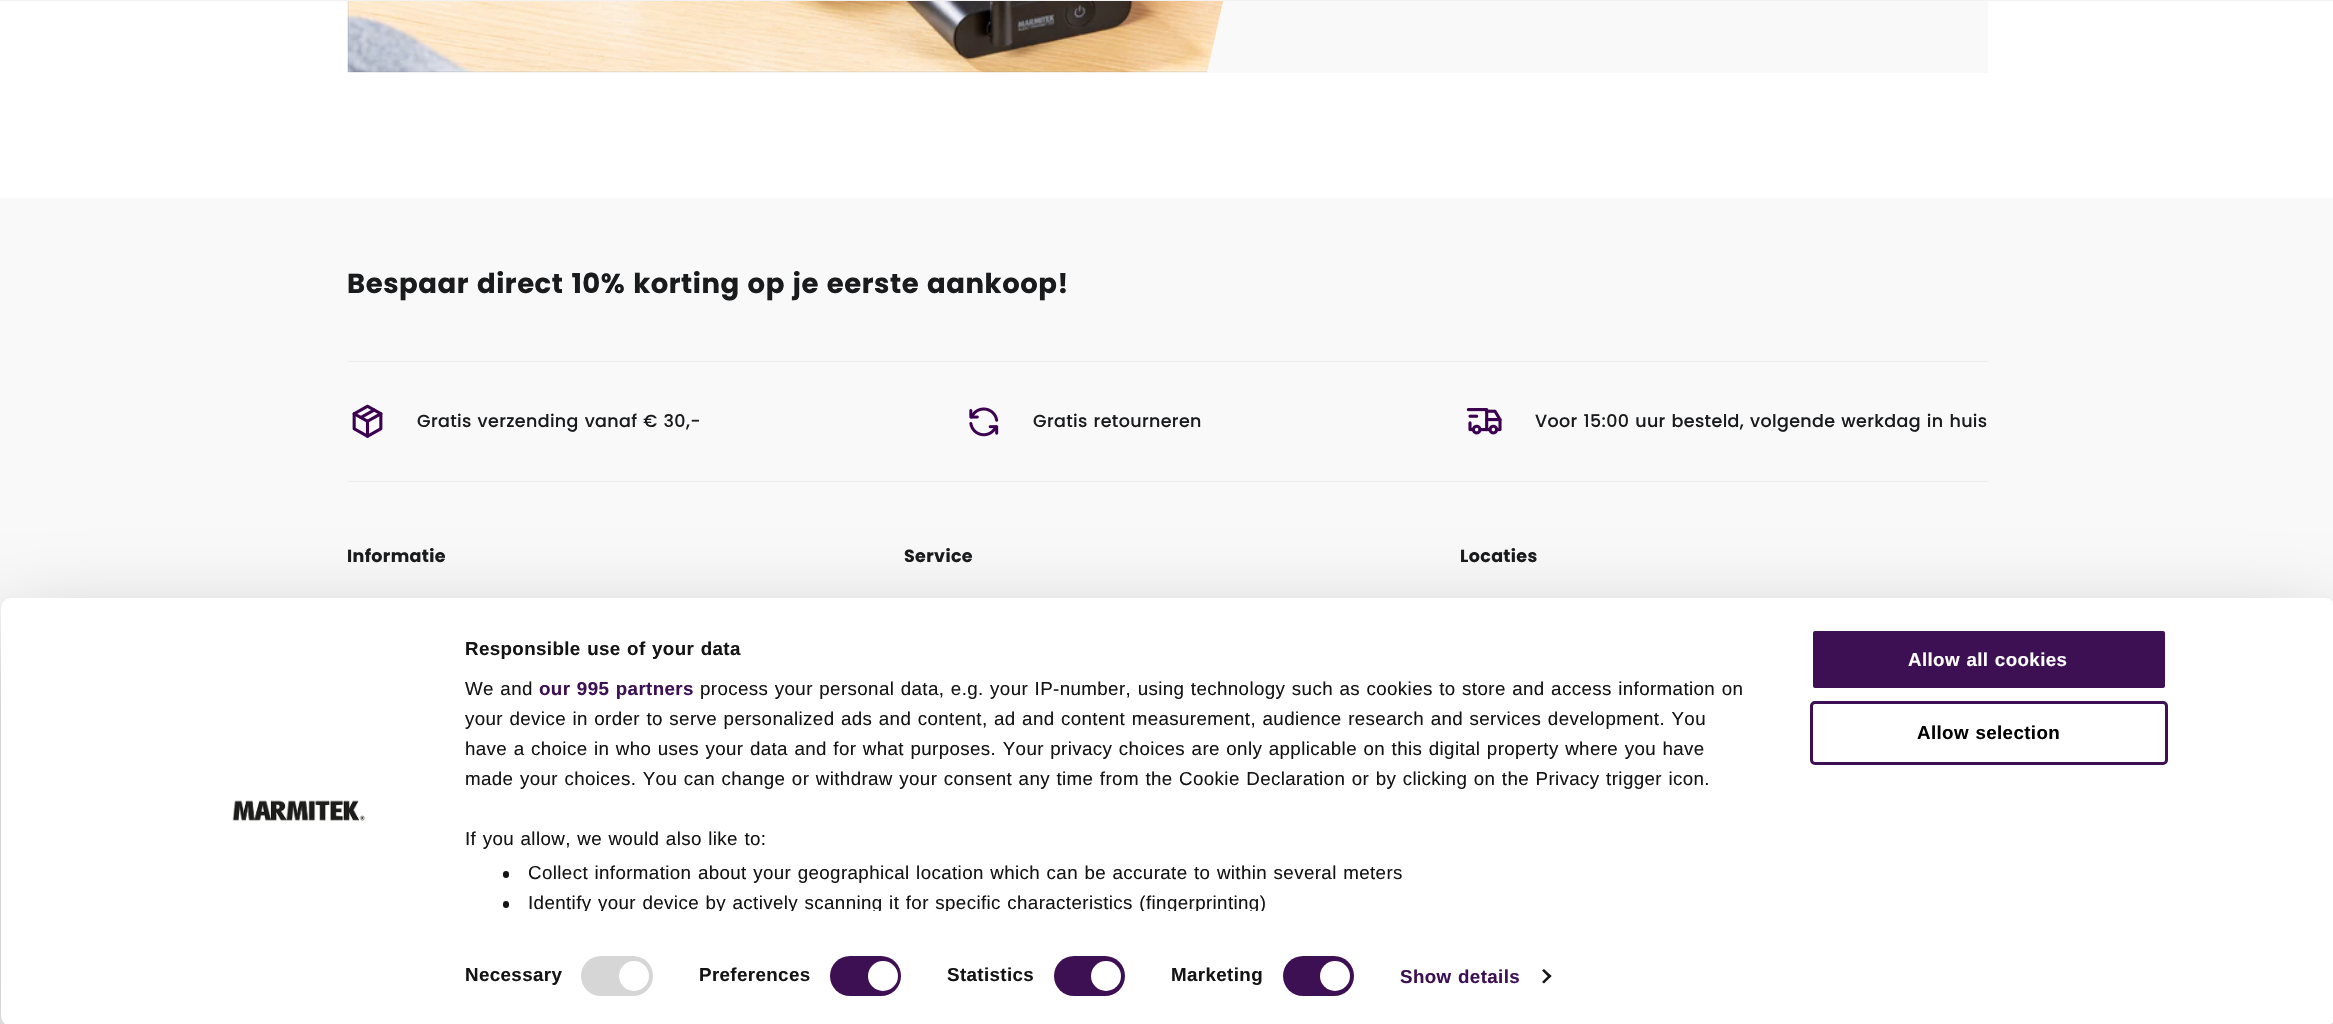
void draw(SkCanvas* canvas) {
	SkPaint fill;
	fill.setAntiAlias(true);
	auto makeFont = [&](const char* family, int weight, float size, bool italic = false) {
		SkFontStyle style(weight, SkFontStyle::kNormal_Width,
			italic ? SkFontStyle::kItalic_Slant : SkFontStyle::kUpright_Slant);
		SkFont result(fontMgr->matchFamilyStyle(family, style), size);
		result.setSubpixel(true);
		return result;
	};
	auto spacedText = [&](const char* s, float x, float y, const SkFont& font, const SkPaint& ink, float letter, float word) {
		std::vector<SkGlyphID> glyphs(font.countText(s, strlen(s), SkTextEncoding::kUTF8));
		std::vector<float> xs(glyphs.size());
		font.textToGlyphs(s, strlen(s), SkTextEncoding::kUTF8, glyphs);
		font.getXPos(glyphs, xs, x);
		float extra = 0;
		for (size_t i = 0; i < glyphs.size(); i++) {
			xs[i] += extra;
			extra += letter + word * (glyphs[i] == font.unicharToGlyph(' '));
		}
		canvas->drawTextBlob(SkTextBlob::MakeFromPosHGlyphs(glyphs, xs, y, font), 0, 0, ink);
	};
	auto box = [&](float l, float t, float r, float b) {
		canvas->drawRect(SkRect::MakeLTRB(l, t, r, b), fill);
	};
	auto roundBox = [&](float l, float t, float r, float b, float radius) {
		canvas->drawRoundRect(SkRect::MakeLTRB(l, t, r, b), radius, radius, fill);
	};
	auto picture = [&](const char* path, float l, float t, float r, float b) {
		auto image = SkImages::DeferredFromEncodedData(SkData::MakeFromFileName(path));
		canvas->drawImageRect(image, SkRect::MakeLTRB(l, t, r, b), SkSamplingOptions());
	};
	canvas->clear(0xFFFFFFFF);
	fill.setColor(0xFFF2F2F2);
	box(0, 0, 2333, 1);
	fill.setColor(0xFFF9F9F9);
	box(348, 1, 1988, 73);
	picture("image0.png", 347, 1, 1224, 73);
	box(0, 198, 2333, 1024);
	fill.setColor(0xFFEDEDED);
	box(348, 361, 1988, 362);
	picture("image1.png", 352, 404, 383, 438);
	picture("image2.png", 969, 407, 999, 437);
	picture("image3.png", 1466, 408, 1502, 435);
	box(348, 481, 1988, 482);
	fill.setColor(0x4D000000);
	fill.setMaskFilter(SkMaskFilter::MakeBlur(kNormal_SkBlurStyle, 44));
	canvas->drawRoundRect(SkRect::MakeLTRB(1, 635, 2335, 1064), 10, 10, fill);
	fill.setMaskFilter(nullptr);
	fill.setColor(0xFFFFFFFF);
	roundBox(1, 598, 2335, 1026, 10);
	fill.setColor(0xFF141414);
	roundBox(503, 871, 509, 878, 3);
	roundBox(503, 901, 509, 908, 3);
	fill.setColor(0xFFD6D6D6);
	roundBox(581, 956, 653, 996, 20);
	fill.setColor(0xFFFFFFFF);
	canvas->drawCircle(634, 976, 15, fill);
	fill.setColor(0xFF3C1053);
	roundBox(830, 956, 901, 996, 20);
	fill.setColor(0xFFFFFFFF);
	canvas->drawCircle(883, 976, 15, fill);
	fill.setColor(0xFF3C1053);
	roundBox(1054, 956, 1125, 996, 20);
	fill.setColor(0xFFFFFFFF);
	canvas->drawCircle(1106, 976, 15, fill);
	fill.setColor(0xFF3C1053);
	roundBox(1283, 956, 1354, 996, 20);
	fill.setColor(0xFFFFFFFF);
	canvas->drawCircle(1335, 976, 15, fill);
	fill.setColor(0xFF141414);
	canvas->drawPath(SkPathBuilder().moveTo(1544, 969).lineTo(1551.5f, 976).lineTo(1549.5f, 978).lineTo(1542, 970.5f).close().detach(), fill);
	canvas->drawPath(SkPathBuilder().moveTo(1549.5f, 974.5f).lineTo(1551.5f, 976).lineTo(1544, 983.5f).lineTo(1542, 982).close().detach(), fill);
	fill.setColor(0xFF3C1053);
	canvas->drawRoundRect(SkRect::MakeLTRB(1811.5f, 629.5f, 2166.5f, 689.5f), 3.5f, 3.5f, fill);
	fill.setStyle(SkPaint::kStroke_Style);
	fill.setStrokeWidth(3);
	fill.setColor(0xFFFFFFFF);
	canvas->drawRoundRect(SkRect::MakeLTRB(1811.5f, 629.5f, 2166.5f, 689.5f), 3.5f, 3.5f, fill);
	fill.setColor(0xFF3C1053);
	canvas->drawRoundRect(SkRect::MakeLTRB(1811.5f, 702.5f, 2166.5f, 763.5f), 3.5f, 3.5f, fill);
	picture("image4.png", 232, 800, 365, 821);
	auto font1 = makeFont("Poppins", 700, 27.5f);
	fill.setStyle(SkPaint::kFill_Style);
	fill.setColor(0xFF191B1D);
	spacedText("Bespaar direct 10% korting op je eerste aankoop!", 347, 293, font1, fill, 0.55f, 1.5f);
	auto font2 = makeFont("Poppins", 500, 17.5f);
	spacedText("Gratis verzending vanaf € 30,-", 417, 427, font2, fill, 0.35f, 1);
	spacedText("Gratis retourneren", 1033, 427, font2, fill, 0.35f, 1);
	spacedText("Voor 15:00 uur besteld, volgende werkdag in huis", 1535, 427, font2, fill, 0.35f, 1);
	auto font3 = makeFont("Poppins", 700, 17.5f);
	spacedText("Informatie", 347, 562, font3, fill, 0.35f, 0);
	spacedText("Service", 904, 562, font3, fill, 0.35f, 0);
	spacedText("Locaties", 1460, 562, font3, fill, 0.35f, 0);
	auto font4 = makeFont("Liberation Sans", 700, 18.75f);
	fill.setColor(0xFF141414);
	spacedText("Responsible use of your data", 465, 655, font4, fill, 0.38f, 0.9f);
	auto font5 = makeFont("Liberation Sans", 400, 18.75f);
	spacedText("We and", 465, 695, font5, fill, 0.38f, 0.9f);
	fill.setColor(0xFF3C1053);
	spacedText("our 995 partners", 539, 695, font4, fill, 0.38f, 0.9f);
	fill.setColor(0xFF141414);
	spacedText("process your personal data, e.g. your IP-number, using technology such as cookies to store and access information on", 700, 695, font5, fill, 0.38f, 0.9f);
	spacedText("your device in order to serve personalized ads and content, ad and content measurement, audience research and services development. You", 465, 725, font5, fill, 0.38f, 0.9f);
	spacedText("have a choice in who uses your data and for what purposes. Your privacy choices are only applicable on this digital property where you have", 465, 755, font5, fill, 0.38f, 0.9f);
	spacedText("made your choices. You can change or withdraw your consent any time from the Cookie Declaration or by clicking on the Privacy trigger icon.", 465, 785, font5, fill, 0.38f, 0.9f);
	spacedText("If you allow, we would also like to:", 465, 845, font5, fill, 0.38f, 0.9f);
	spacedText("Collect information about your geographical location which can be accurate to within several meters", 528, 879, font5, fill, 0.38f, 0.9f);
	canvas->save();
	canvas->clipRect(SkRect::MakeLTRB(465, 635, 1775, 911));
	spacedText("Identify your device by actively scanning it for specific characteristics (fingerprinting)", 528, 909, font5, fill, 0.38f, 0.9f);
	canvas->restore();
	spacedText("Necessary", 465, 981, font4, fill, 0.38f, 0);
	spacedText("Preferences", 699, 981, font4, fill, 0.38f, 0);
	spacedText("Statistics", 947, 981, font4, fill, 0.38f, 0);
	spacedText("Marketing", 1171, 981, font4, fill, 0.38f, 0);
	fill.setColor(0xFF3C1053);
	spacedText("Show details", 1400, 983, font4, fill, 0.38f, 0.9f);
	fill.setColor(0xFFFFFFFF);
	spacedText("Allow all cookies", 1908, 666, font4, fill, 0.38f, 0.9f);
	fill.setColor(0xFF000000);
	spacedText("Allow selection", 1917, 739, font4, fill, 0.38f, 0.9f);
}
